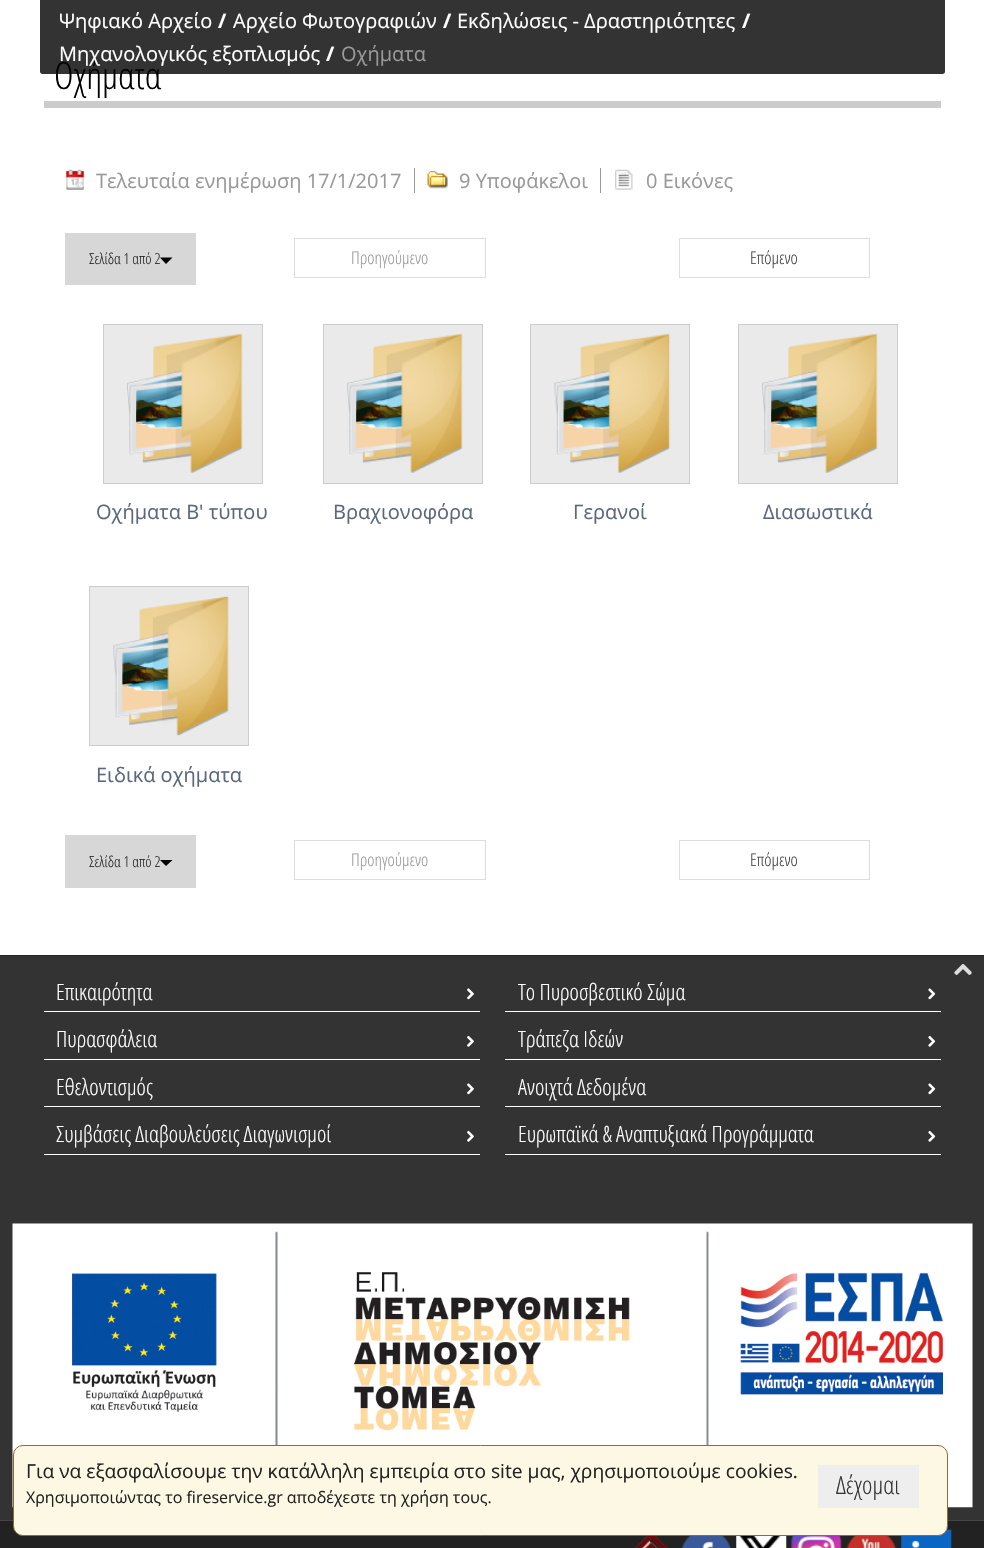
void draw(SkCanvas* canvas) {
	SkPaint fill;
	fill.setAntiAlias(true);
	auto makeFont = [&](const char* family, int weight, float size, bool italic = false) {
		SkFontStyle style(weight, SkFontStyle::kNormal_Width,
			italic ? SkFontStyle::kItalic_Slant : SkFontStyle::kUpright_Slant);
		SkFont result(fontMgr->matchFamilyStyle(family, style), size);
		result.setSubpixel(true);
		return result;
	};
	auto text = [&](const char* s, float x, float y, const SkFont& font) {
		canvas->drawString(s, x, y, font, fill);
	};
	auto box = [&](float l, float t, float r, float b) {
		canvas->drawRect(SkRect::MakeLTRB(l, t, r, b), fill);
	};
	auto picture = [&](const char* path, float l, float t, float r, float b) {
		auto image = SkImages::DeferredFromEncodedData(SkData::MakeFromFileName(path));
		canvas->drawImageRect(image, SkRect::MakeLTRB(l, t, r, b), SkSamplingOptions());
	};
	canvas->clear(0xFFFFFFFF);
	fill.setColor(0xFFCCCCCC);
	box(44, 101, 941, 108);
	picture("image0.png", 66, 169, 84, 190);
	fill.setColor(0xFF999999);
	box(414, 168, 415, 193);
	picture("image1.png", 427, 170, 448, 189);
	box(600, 168, 601, 193);
	picture("image2.png", 615, 169, 633, 190);
	fill.setColor(0xFFD7D7D7);
	box(65, 233, 196, 285);
	fill.setColor(0xFF000000);
	canvas->drawPath(SkPathBuilder().moveTo(160, 257.5f).lineTo(172.5f, 257.5f).lineTo(166, 264).close().detach(), fill);
	fill.setStyle(SkPaint::kStroke_Style);
	fill.setStrokeWidth(1);
	fill.setColor(0xFFDDDDDD);
	canvas->drawRect(SkRect::MakeLTRB(294.5f, 238.5f, 485.5f, 277.5f), fill);
	canvas->drawRect(SkRect::MakeLTRB(679.5f, 238.5f, 869.5f, 277.5f), fill);
	fill.setStyle(SkPaint::kFill_Style);
	fill.setColor(0xFFEAEAEA);
	canvas->drawRect(SkRect::MakeLTRB(103.5f, 324.5f, 262.5f, 483.5f), fill);
	fill.setStyle(SkPaint::kStroke_Style);
	fill.setColor(0xFFCCCCCC);
	canvas->drawRect(SkRect::MakeLTRB(103.5f, 324.5f, 262.5f, 483.5f), fill);
	picture("image3.png", 127, 333, 243, 473);
	fill.setStyle(SkPaint::kFill_Style);
	fill.setColor(0xFFEAEAEA);
	canvas->drawRect(SkRect::MakeLTRB(323.5f, 324.5f, 482.5f, 483.5f), fill);
	fill.setStyle(SkPaint::kStroke_Style);
	fill.setColor(0xFFCCCCCC);
	canvas->drawRect(SkRect::MakeLTRB(323.5f, 324.5f, 482.5f, 483.5f), fill);
	picture("image3.png", 347, 333, 463, 473);
	fill.setStyle(SkPaint::kFill_Style);
	fill.setColor(0xFFEAEAEA);
	canvas->drawRect(SkRect::MakeLTRB(530.5f, 324.5f, 689.5f, 483.5f), fill);
	fill.setStyle(SkPaint::kStroke_Style);
	fill.setColor(0xFFCCCCCC);
	canvas->drawRect(SkRect::MakeLTRB(530.5f, 324.5f, 689.5f, 483.5f), fill);
	picture("image4.png", 554, 333, 671, 473);
	fill.setStyle(SkPaint::kFill_Style);
	fill.setColor(0xFFEAEAEA);
	canvas->drawRect(SkRect::MakeLTRB(738.5f, 324.5f, 897.5f, 483.5f), fill);
	fill.setStyle(SkPaint::kStroke_Style);
	fill.setColor(0xFFCCCCCC);
	canvas->drawRect(SkRect::MakeLTRB(738.5f, 324.5f, 897.5f, 483.5f), fill);
	picture("image3.png", 762, 333, 878, 473);
	fill.setStyle(SkPaint::kFill_Style);
	fill.setColor(0xFFEAEAEA);
	canvas->drawRect(SkRect::MakeLTRB(89.5f, 586.5f, 248.5f, 745.5f), fill);
	fill.setStyle(SkPaint::kStroke_Style);
	fill.setColor(0xFFCCCCCC);
	canvas->drawRect(SkRect::MakeLTRB(89.5f, 586.5f, 248.5f, 745.5f), fill);
	picture("image5.png", 113, 595, 229, 736);
	fill.setStyle(SkPaint::kFill_Style);
	fill.setColor(0xFFD7D7D7);
	box(65, 835, 196, 888);
	fill.setColor(0xFF000000);
	canvas->drawPath(SkPathBuilder().moveTo(160, 860).lineTo(172.5f, 860).lineTo(166, 866).close().detach(), fill);
	fill.setStyle(SkPaint::kStroke_Style);
	fill.setColor(0xFFDDDDDD);
	canvas->drawRect(SkRect::MakeLTRB(294.5f, 840.5f, 485.5f, 879.5f), fill);
	canvas->drawRect(SkRect::MakeLTRB(679.5f, 840.5f, 869.5f, 879.5f), fill);
	fill.setStyle(SkPaint::kFill_Style);
	fill.setColor(0xFF222222);
	box(0, 955, 984, 1548);
	fill.setColor(0xFF333333);
	box(0, 956, 984, 1520);
	picture("image11.png", 12, 1223, 973, 1508);
	fill.setColor(0xFF444444);
	box(0, 1520, 984, 1521);
	picture("image17.png", 901, 1529, 952, 1548);
	fill.setColor(0xFFFCF8E3);
	canvas->drawRoundRect(SkRect::MakeLTRB(13.5f, 1445.5f, 947.5f, 1535.5f), 9.5f, 9.5f, fill);
	fill.setStyle(SkPaint::kStroke_Style);
	fill.setColor(0xFF8A6D3B);
	canvas->drawRoundRect(SkRect::MakeLTRB(13.5f, 1445.5f, 947.5f, 1535.5f), 9.5f, 9.5f, fill);
	fill.setStyle(SkPaint::kFill_Style);
	fill.setColor(0xFFEEEEEE);
	box(818, 1465, 919, 1508);
	picture("image6.png", 954, 964, 972, 975);
	fill.setColor(0xFFFFFFFF);
	box(44, 1011, 480, 1012);
	picture("image7.png", 467, 988, 474, 1000);
	box(505, 1011, 941, 1012);
	picture("image8.png", 928, 988, 936, 1000);
	box(44, 1059, 480, 1060);
	picture("image9.png", 467, 1035, 474, 1047);
	box(505, 1059, 941, 1060);
	picture("image10.png", 928, 1035, 936, 1047);
	box(44, 1106, 480, 1107);
	picture("image7.png", 467, 1083, 474, 1095);
	box(505, 1106, 941, 1107);
	picture("image8.png", 928, 1083, 936, 1095);
	box(44, 1154, 480, 1155);
	picture("image9.png", 467, 1130, 474, 1142);
	box(505, 1154, 941, 1155);
	picture("image10.png", 928, 1130, 936, 1142);
	picture("image12.png", 635, 1536, 668, 1548);
	picture("image13.png", 681, 1536, 732, 1548);
	picture("image14.png", 736, 1536, 787, 1548);
	picture("image15.png", 791, 1536, 842, 1548);
	picture("image16.png", 846, 1536, 897, 1548);
	auto font1 = makeFont("Open Sans Condensed", 300, 37.5f);
	fill.setColor(0xFF010101);
	text("Οχήματα", 54, 89, font1);
	fill.setColor(0xCC000000);
	canvas->drawPath(SkPathBuilder().moveTo(40, 0).lineTo(945, 0).lineTo(945, 71.5f).cubicTo(945, 73, 944, 74, 942.5f, 74).lineTo(42.5f, 74).cubicTo(41, 74, 40, 73, 40, 71.5f).close().detach(), fill);
	auto font2 = makeFont("Open Sans", 400, 20);
	fill.setColor(0xFF999999);
	text("Οχήματα", 341, 61, font2);
	auto font3 = makeFont("Open Sans", 700, 20);
	fill.setColor(0xFFFFFFFF);
	text("/", 326, 61, font3);
	text("Μηχανολογικός εξοπλισμός", 59, 61, font2);
	text("/", 742, 28, font3);
	text("Εκδηλώσεις - Δραστηριότητες", 457, 28, font2);
	text("/", 443, 28, font3);
	text("Αρχείο Φωτογραφιών", 233, 28, font2);
	text("/", 218, 28, font3);
	text("Ψηφιακό Αρχείο", 59, 28, font2);
	fill.setColor(0xFF999999);
	text("Τελευταία ενημέρωση 17/1/2017", 96, 188, font2);
	text("9 Υποφάκελοι", 459, 188, font2);
	text("0 Εικόνες", 646, 188, font2);
	auto font4 = makeFont("Open Sans Condensed", 300, 15);
	fill.setColor(0xFF222222);
	text("Σελίδα 1 από 2", 89, 264, font4);
	auto font5 = makeFont("Open Sans Condensed", 300, 17.5f);
	fill.setColor(0xFF999999);
	text("Προηγούμενο", 351, 264, font5);
	fill.setColor(0xFF444444);
	text("Επόμενο", 750, 264, font5);
	fill.setColor(0xFF5B677D);
	text("Oχήματα Β' τύπου", 96, 519, font2);
	text("Βραχιονοφόρα", 333, 519, font2);
	text("Γερανοί", 573, 519, font2);
	text("Διασωστικά", 763, 519, font2);
	text("Ειδικά οχήματα", 96, 782, font2);
	fill.setColor(0xFF222222);
	text("Σελίδα 1 από 2", 89, 867, font4);
	fill.setColor(0xFF999999);
	text("Προηγούμενο", 351, 866, font5);
	fill.setColor(0xFF444444);
	text("Επόμενο", 750, 866, font5);
	auto font6 = makeFont("Open Sans", 400, 19.2f);
	fill.setColor(0xFF222222);
	text("Για να εξασφαλίσουμε την κατάλληλη εμπειρία στο site μας, χρησιμοποιούμε cookies.", 26, 1478, font6);
	auto font7 = makeFont("Open Sans", 400, 16);
	text("Χρησιμοποιώντας το fireservice.gr αποδέχεστε τη χρήση τους.", 26, 1503, font7);
	auto font8 = makeFont("Open Sans Condensed", 300, 25);
	fill.setColor(0xFF333333);
	text("Δέχομαι", 836, 1494, font8);
	auto font9 = makeFont("Open Sans Condensed", 300, 22.5f);
	fill.setColor(0xFFFFFFFF);
	text("Επικαιρότητα", 56, 1000, font9);
	text("Το Πυροσβεστικό Σώμα", 518, 1000, font9);
	text("Πυρασφάλεια", 56, 1047, font9);
	text("Τράπεζα Ιδεών", 518, 1047, font9);
	text("Εθελοντισμός", 56, 1095, font9);
	text("Ανοιχτά Δεδομένα", 518, 1095, font9);
	text("Συμβάσεις Διαβουλεύσεις Διαγωνισμοί", 56, 1142, font9);
	text("Ευρωπαϊκά & Αναπτυξιακά Προγράμματα", 518, 1142, font9);
}
